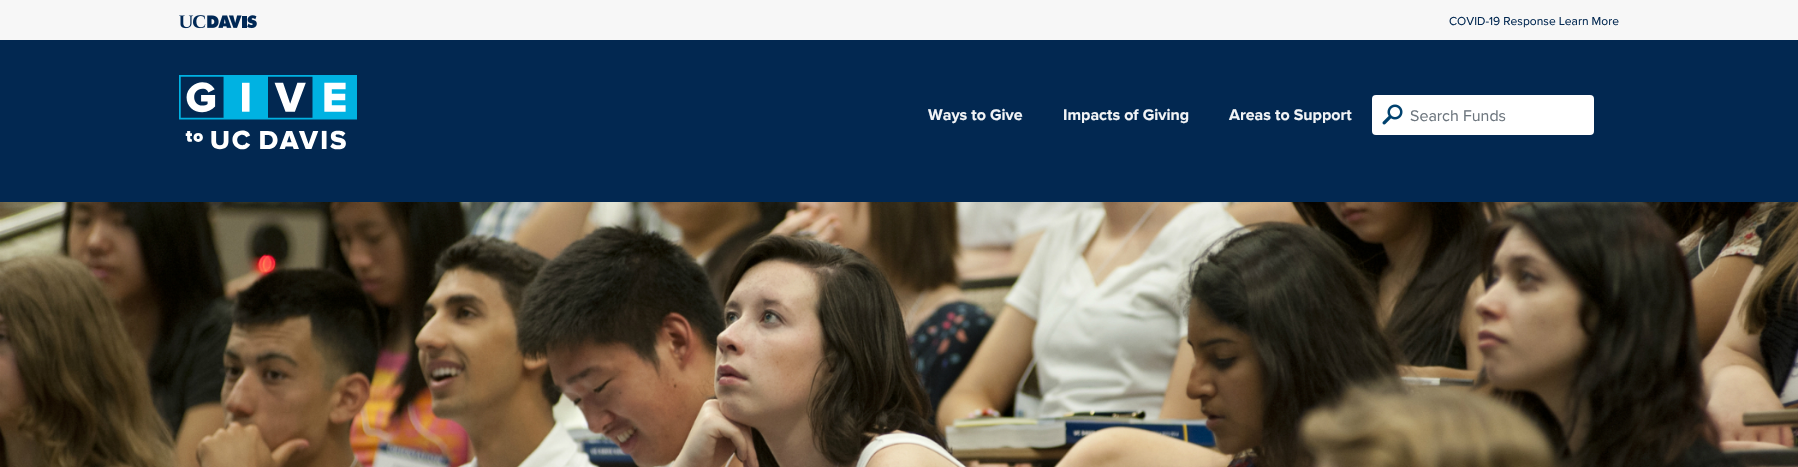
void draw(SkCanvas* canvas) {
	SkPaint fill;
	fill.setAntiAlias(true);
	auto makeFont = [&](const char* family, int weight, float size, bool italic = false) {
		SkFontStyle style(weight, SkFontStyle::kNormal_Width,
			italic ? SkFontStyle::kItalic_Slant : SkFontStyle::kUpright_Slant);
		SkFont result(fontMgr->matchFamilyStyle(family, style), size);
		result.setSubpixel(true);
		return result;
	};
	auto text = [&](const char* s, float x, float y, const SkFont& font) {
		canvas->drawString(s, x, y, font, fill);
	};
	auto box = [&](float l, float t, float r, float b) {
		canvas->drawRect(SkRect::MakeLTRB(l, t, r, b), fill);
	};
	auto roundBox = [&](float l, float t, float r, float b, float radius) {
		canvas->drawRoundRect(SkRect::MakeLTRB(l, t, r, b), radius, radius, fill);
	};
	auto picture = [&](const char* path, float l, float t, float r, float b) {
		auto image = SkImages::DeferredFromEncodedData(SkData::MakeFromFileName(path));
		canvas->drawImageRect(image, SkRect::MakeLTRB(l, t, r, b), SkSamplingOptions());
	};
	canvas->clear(0xFFF7F7F7);
	picture("image0.png", 179, 15, 257, 29);
	fill.setColor(0xFF022851);
	box(0, 40, 1798, 202);
	picture("image1.png", 179, 75, 357, 150);
	fill.setColor(0xFFFFFFFF);
	roundBox(1372, 95, 1594, 135, 4);
	picture("image2.png", 1382, 104, 1403, 125);
	picture("image3.png", 0, 202, 1798, 467);
	auto font1 = makeFont("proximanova", 400, 12);
	fill.setColor(0xFF022851);
	text("COVID-19 Response Learn More", 1449, 25, font1);
	auto font2 = makeFont("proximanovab", 700, 16);
	fill.setColor(0xFFF2F4F6);
	text("Ways to Give", 928, 120, font2);
	text("Impacts of Giving", 1063, 120, font2);
	text("Areas to Support", 1229, 120, font2);
	auto font3 = makeFont("proximanova", 400, 16);
	fill.setColor(0xFF6C757D);
	text("Search Funds", 1410, 121, font3);
}
